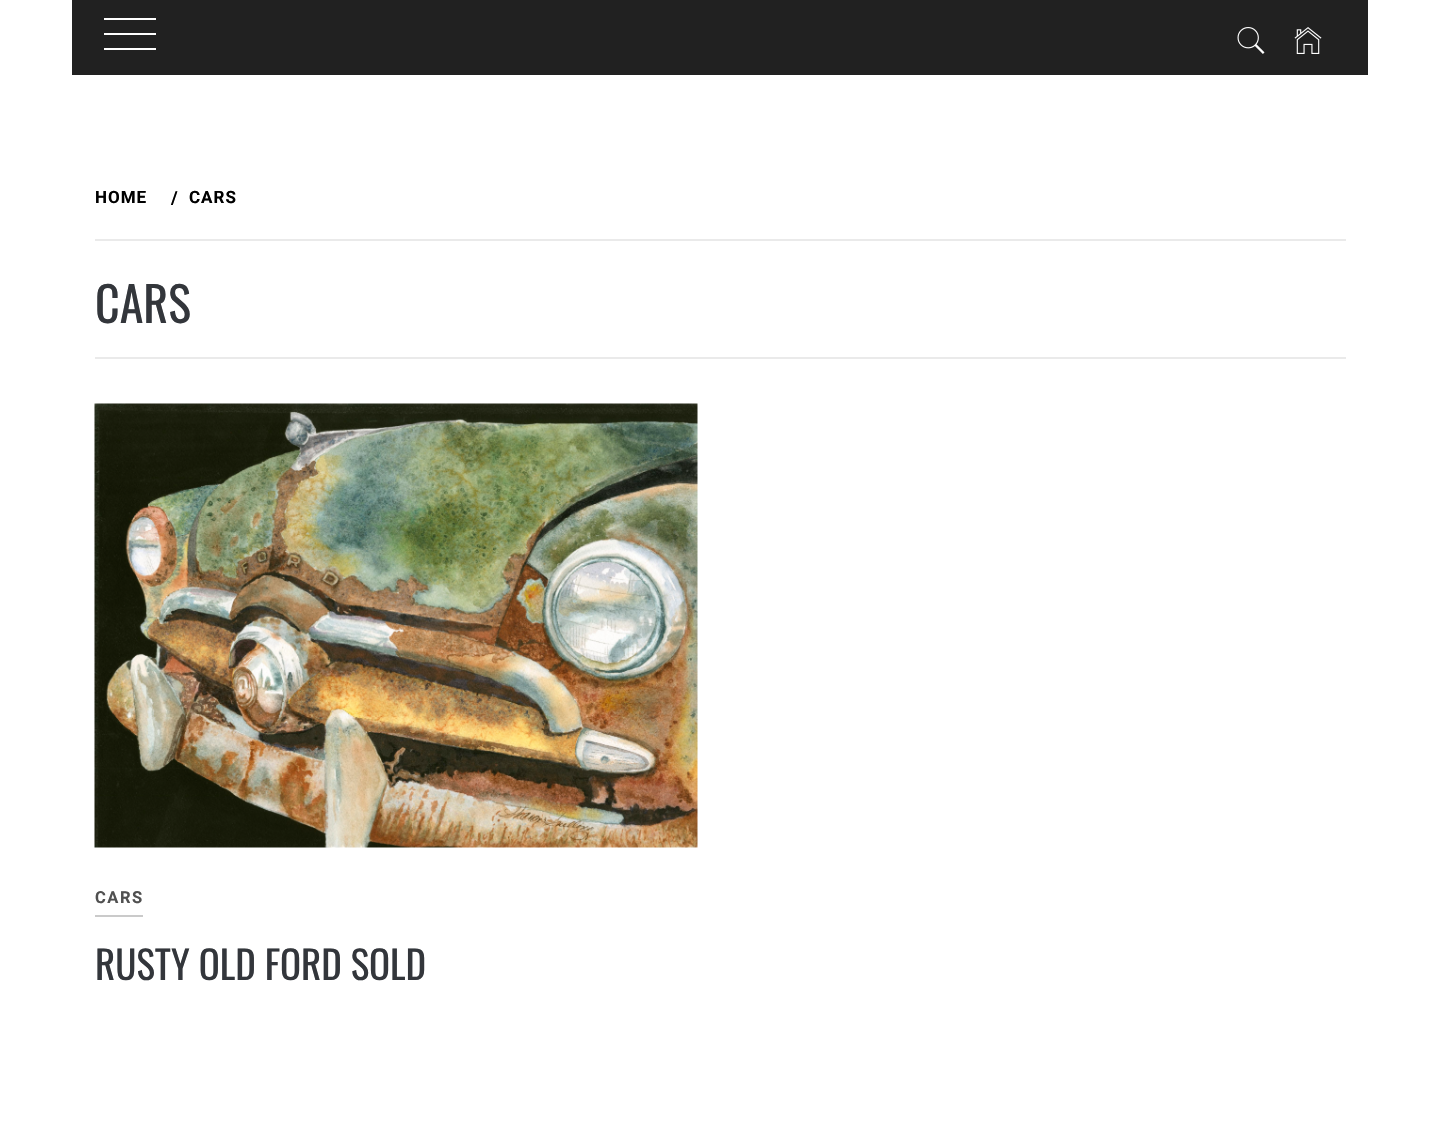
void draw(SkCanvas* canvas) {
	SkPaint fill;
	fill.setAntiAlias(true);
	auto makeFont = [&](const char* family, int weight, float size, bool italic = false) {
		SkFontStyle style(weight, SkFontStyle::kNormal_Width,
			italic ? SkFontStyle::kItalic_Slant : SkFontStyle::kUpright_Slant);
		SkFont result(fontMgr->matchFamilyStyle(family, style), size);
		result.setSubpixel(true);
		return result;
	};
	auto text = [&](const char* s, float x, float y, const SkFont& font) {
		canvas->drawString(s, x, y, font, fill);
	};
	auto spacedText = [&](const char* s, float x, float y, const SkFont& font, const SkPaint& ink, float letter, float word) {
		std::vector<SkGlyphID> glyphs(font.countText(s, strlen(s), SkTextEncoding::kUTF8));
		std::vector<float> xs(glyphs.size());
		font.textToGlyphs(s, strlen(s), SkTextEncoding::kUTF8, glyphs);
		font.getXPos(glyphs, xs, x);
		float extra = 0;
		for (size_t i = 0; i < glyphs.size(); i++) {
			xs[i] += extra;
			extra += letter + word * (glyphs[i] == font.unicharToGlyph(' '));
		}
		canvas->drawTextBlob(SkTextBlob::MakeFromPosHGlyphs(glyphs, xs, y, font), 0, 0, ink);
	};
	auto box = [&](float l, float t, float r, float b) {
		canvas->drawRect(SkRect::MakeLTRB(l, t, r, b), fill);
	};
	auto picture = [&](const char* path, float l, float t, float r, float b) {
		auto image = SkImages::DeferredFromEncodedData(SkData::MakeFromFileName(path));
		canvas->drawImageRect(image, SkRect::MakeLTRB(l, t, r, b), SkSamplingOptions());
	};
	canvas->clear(0xFFFFFFFF);
	fill.setColor(0xFF212121);
	box(72, 0, 1368, 75);
	fill.setColor(0xFFFFFFFF);
	box(104, 18, 156, 20);
	box(104, 33, 156, 35);
	box(104, 48, 156, 50);
	picture("image0.png", 1237, 27, 1265, 54);
	picture("image1.png", 1294, 27, 1322, 54);
	fill.setColor(0xFFEAEAEA);
	box(95, 357, 1346, 359);
	box(95, 239, 1346, 241);
	picture("image2.png", 94, 403, 698, 848);
	fill.setColor(0xFFCACACA);
	box(95, 915, 143, 917);
	auto font1 = makeFont("Roboto", 700, 17);
	fill.setColor(0xFF000000);
	spacedText("HOME", 95, 203, font1, fill, 1, 0);
	auto font2 = makeFont("Roboto", 700, 18);
	spacedText("/", 171, 204, font2, fill, 1, 0);
	spacedText("CARS", 189, 203, font1, fill, 1, 0);
	auto font3 = makeFont("Oswald", 400, 48);
	fill.setColor(0xFF33363B);
	text("CARS", 95, 323, font3);
	auto font4 = makeFont("Roboto", 700, 16.5f);
	fill.setColor(0xFF505050);
	spacedText("CARS", 95, 903, font4, fill, 1.5f, 0);
	auto font5 = makeFont("Oswald", 400, 39);
	fill.setColor(0xFF33363B);
	text("RUSTY OLD FORD SOLD", 95, 980, font5);
}
